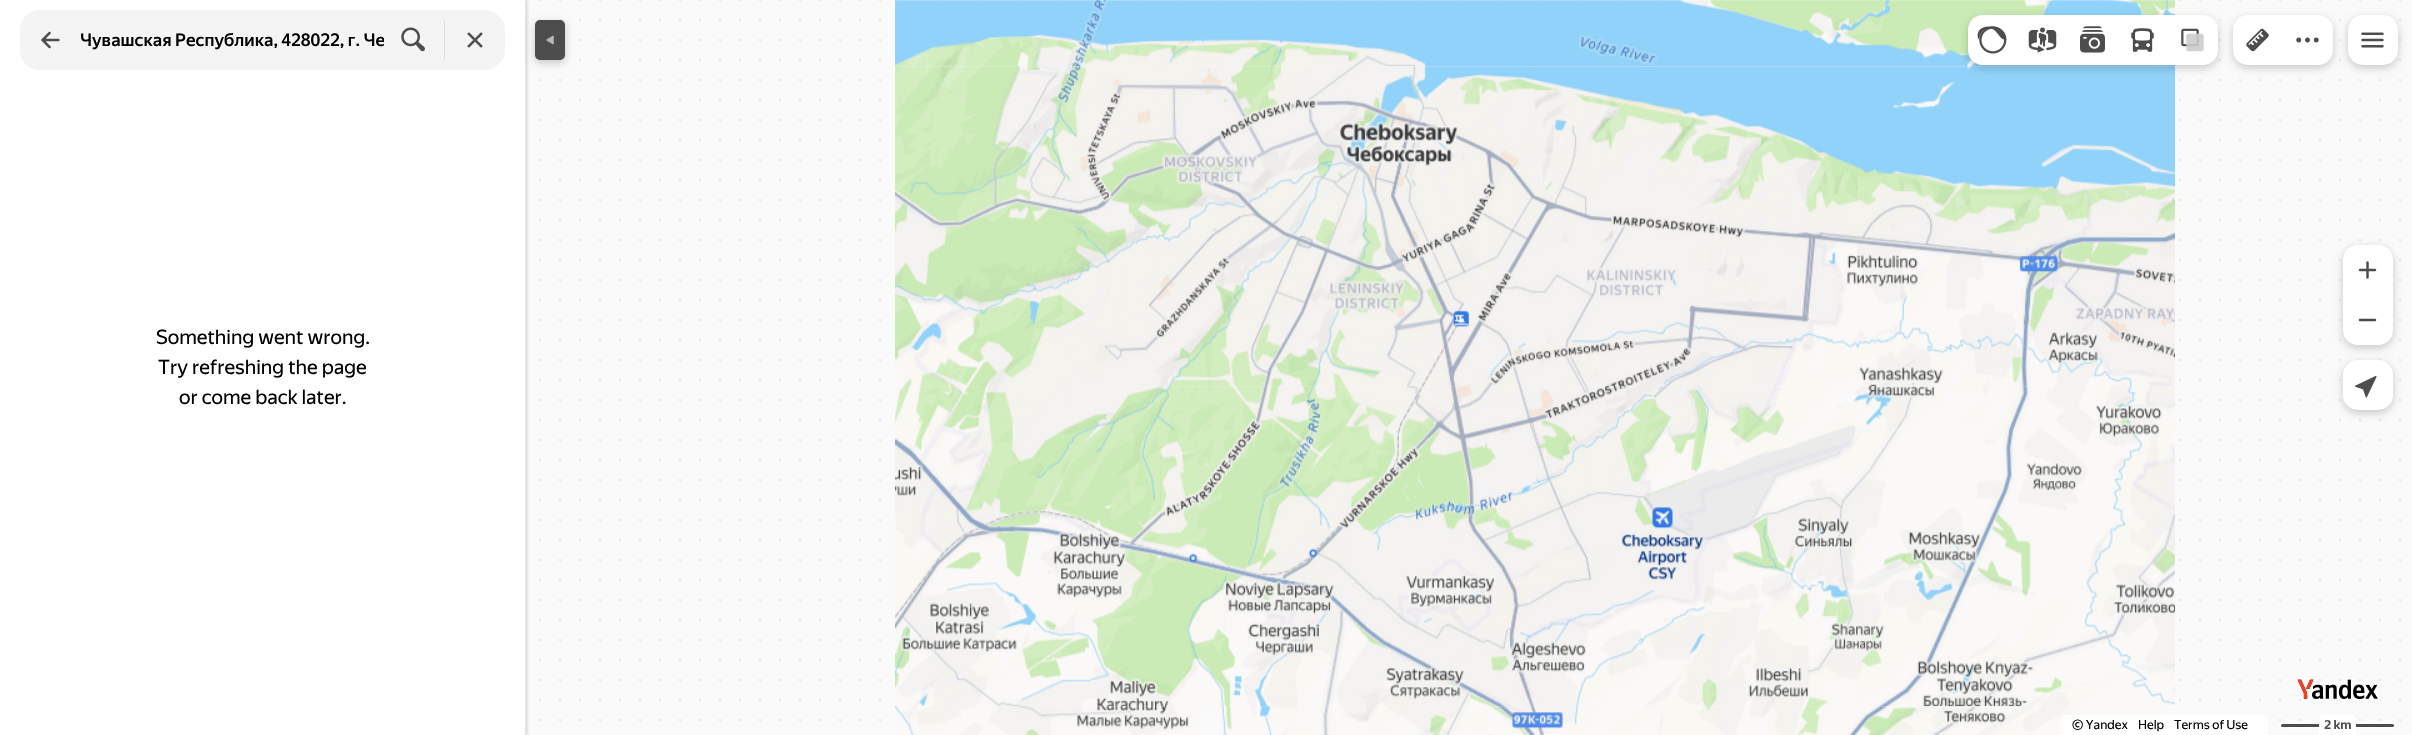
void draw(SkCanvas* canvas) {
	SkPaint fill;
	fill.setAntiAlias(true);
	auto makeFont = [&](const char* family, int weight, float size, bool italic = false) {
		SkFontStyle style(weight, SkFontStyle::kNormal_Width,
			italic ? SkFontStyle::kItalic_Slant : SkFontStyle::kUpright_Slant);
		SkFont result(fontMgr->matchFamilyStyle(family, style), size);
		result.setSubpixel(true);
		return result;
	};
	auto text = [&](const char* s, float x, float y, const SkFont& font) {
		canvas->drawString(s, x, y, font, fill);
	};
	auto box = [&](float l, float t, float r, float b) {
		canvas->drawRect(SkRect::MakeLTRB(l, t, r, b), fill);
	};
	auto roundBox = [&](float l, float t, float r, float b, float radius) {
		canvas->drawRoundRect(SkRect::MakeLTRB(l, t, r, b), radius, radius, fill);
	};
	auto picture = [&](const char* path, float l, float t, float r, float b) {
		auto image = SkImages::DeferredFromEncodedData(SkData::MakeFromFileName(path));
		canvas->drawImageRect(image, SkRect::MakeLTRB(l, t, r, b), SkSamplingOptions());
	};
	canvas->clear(0xFFFFFFFF);
	picture("image0.png", 525, 0, 2412, 735);
	picture("image5.png", 895, 66, 1215, 387);
	picture("image1.png", 895, 0, 1215, 67);
	picture("image2.png", 1215, 0, 1535, 66);
	picture("image3.png", 1535, 0, 1855, 66);
	picture("image4.png", 1855, 0, 2175, 66);
	picture("image6.png", 1215, 66, 1535, 387);
	picture("image7.png", 1535, 66, 1855, 387);
	picture("image8.png", 1855, 66, 2175, 387);
	picture("image9.png", 895, 386, 1215, 707);
	picture("image10.png", 1215, 386, 1535, 707);
	picture("image11.png", 1535, 386, 1855, 707);
	picture("image12.png", 1855, 386, 2175, 707);
	picture("image13.png", 895, 706, 1201, 735);
	picture("image14.png", 1219, 706, 1535, 735);
	picture("image15.png", 1535, 706, 1855, 735);
	picture("image16.png", 1855, 706, 2161, 735);
	fill.setColor(0x1A000000);
	fill.setMaskFilter(SkMaskFilter::MakeBlur(kNormal_SkBlurStyle, 1));
	canvas->drawRect(SkRect::MakeLTRB(3, 0, 528, 735), fill);
	fill.setMaskFilter(nullptr);
	fill.setColor(0x33000000);
	fill.setMaskFilter(SkMaskFilter::MakeBlur(kNormal_SkBlurStyle, 4));
	canvas->drawRoundRect(SkRect::MakeLTRB(535, 23, 565, 63), 5, 5, fill);
	fill.setMaskFilter(nullptr);
	fill.setColor(0xFFFFFFFF);
	box(2, 0, 525, 735);
	fill.setColor(0xFFF4F4F4);
	roundBox(20, 10, 505, 70, 20);
	picture("image17.png", 41, 31, 60, 49);
	picture("image18.png", 401, 27, 425, 52);
	fill.setColor(0xFFE0E0E0);
	box(444, 20, 445, 60);
	picture("image19.png", 467, 32, 483, 48);
	fill.setColor(0x33000000);
	fill.setMaskFilter(SkMaskFilter::MakeBlur(kNormal_SkBlurStyle, 4));
	canvas->drawRoundRect(SkRect::MakeLTRB(1968, 18, 2218, 68), 15, 15, fill);
	fill.setMaskFilter(nullptr);
	fill.setColor(0xFFFFFFFF);
	canvas->drawPath(SkPathBuilder().moveTo(1983, 15).lineTo(2018, 15).lineTo(2018, 65).lineTo(1983, 65).cubicTo(1974.5f, 65, 1968, 58.5f, 1968, 50).lineTo(1968, 30).cubicTo(1968, 21.5f, 1974.5f, 15, 1983, 15).close().detach(), fill);
	picture("image20.png", 1977, 26, 2007, 54);
	box(2018, 15, 2168, 65);
	picture("image21.png", 2028, 27, 2057, 53);
	canvas->drawPath(SkPathBuilder().moveTo(2168, 15).lineTo(2203, 15).cubicTo(2211.5f, 15, 2218, 21.5f, 2218, 30).lineTo(2218, 50).cubicTo(2218, 58.5f, 2211.5f, 65, 2203, 65).lineTo(2168, 65).close().detach(), fill);
	picture("image22.png", 2181, 28, 2204, 52);
	picture("image23.png", 2080, 26, 2105, 53);
	picture("image24.png", 2131, 28, 2154, 52);
	fill.setColor(0x33000000);
	fill.setMaskFilter(SkMaskFilter::MakeBlur(kNormal_SkBlurStyle, 4));
	canvas->drawRoundRect(SkRect::MakeLTRB(2233, 18, 2333, 68), 15, 15, fill);
	fill.setMaskFilter(nullptr);
	fill.setColor(0xFFFFFFFF);
	canvas->drawPath(SkPathBuilder().moveTo(2248, 15).lineTo(2283, 15).lineTo(2283, 65).lineTo(2248, 65).cubicTo(2239.5f, 65, 2233, 58.5f, 2233, 50).lineTo(2233, 30).cubicTo(2233, 21.5f, 2239.5f, 15, 2248, 15).close().detach(), fill);
	picture("image25.png", 2246, 28, 2269, 52);
	canvas->drawPath(SkPathBuilder().moveTo(2283, 15).lineTo(2318, 15).cubicTo(2326.5f, 15, 2333, 21.5f, 2333, 30).lineTo(2333, 50).cubicTo(2333, 58.5f, 2326.5f, 65, 2318, 65).lineTo(2283, 65).close().detach(), fill);
	picture("image26.png", 2296, 37, 2319, 43);
	fill.setColor(0x33000000);
	fill.setMaskFilter(SkMaskFilter::MakeBlur(kNormal_SkBlurStyle, 4));
	canvas->drawRoundRect(SkRect::MakeLTRB(2348, 18, 2398, 68), 15, 15, fill);
	fill.setMaskFilter(nullptr);
	fill.setColor(0xFFFFFFFF);
	roundBox(2348, 15, 2398, 65, 15);
	picture("image27.png", 2361, 32, 2384, 48);
	fill.setColor(0x33000000);
	fill.setMaskFilter(SkMaskFilter::MakeBlur(kNormal_SkBlurStyle, 4));
	canvas->drawRoundRect(SkRect::MakeLTRB(2343, 248, 2393, 348), 15, 15, fill);
	fill.setMaskFilter(nullptr);
	fill.setColor(0xFFFFFFFF);
	canvas->drawPath(SkPathBuilder().moveTo(2358, 245).lineTo(2378, 245).cubicTo(2386.5f, 245, 2393, 251.5f, 2393, 260).lineTo(2393, 295).lineTo(2343, 295).lineTo(2343, 260).cubicTo(2343, 251.5f, 2349.5f, 245, 2358, 245).close().detach(), fill);
	picture("image28.png", 2358, 261, 2377, 279);
	canvas->drawPath(SkPathBuilder().moveTo(2343, 295).lineTo(2393, 295).lineTo(2393, 330).cubicTo(2393, 338.5f, 2386.5f, 345, 2378, 345).lineTo(2358, 345).cubicTo(2349.5f, 345, 2343, 338.5f, 2343, 330).close().detach(), fill);
	picture("image29.png", 2358, 318, 2377, 322);
	fill.setColor(0x33000000);
	fill.setMaskFilter(SkMaskFilter::MakeBlur(kNormal_SkBlurStyle, 4));
	canvas->drawRoundRect(SkRect::MakeLTRB(2343, 363, 2393, 413), 15, 15, fill);
	fill.setMaskFilter(nullptr);
	fill.setColor(0xFFFFFFFF);
	roundBox(2343, 360, 2393, 410, 15);
	picture("image30.png", 2355, 376, 2377, 398);
	fill.setColor(0xFF4D4D4D);
	roundBox(535, 20, 565, 60, 5);
	picture("image31.png", 546, 35, 554, 45);
	picture("image32.png", 2297, 678, 2381, 701);
	fill.setColor(0xFFFFFFFF);
	canvas->drawPath(SkPathBuilder().moveTo(2066, 715).lineTo(2263, 715).cubicTo(2266, 715, 2268, 717, 2268, 720).lineTo(2268, 735).lineTo(2061, 735).lineTo(2061, 720).cubicTo(2061, 717, 2063, 715, 2066, 715).close().detach(), fill);
	fill.setColor(0xFFFDFDFD);
	roundBox(2279, 721, 2396, 729, 4);
	fill.setColor(0xFF4D4D4D);
	roundBox(2281, 724, 2394, 727, 1.5f);
	fill.setColor(0xFFFFFFFF);
	canvas->drawPath(SkPathBuilder().moveTo(2324, 715).lineTo(2351, 715).cubicTo(2354, 715, 2356, 717, 2356, 720).lineTo(2356, 735).lineTo(2319, 735).lineTo(2319, 720).cubicTo(2319, 717, 2321, 715, 2324, 715).close().detach(), fill);
	canvas->save();
	canvas->clipRect(SkRect::MakeLTRB(80, 10, 384, 70));
	auto font1 = makeFont("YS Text", 500, 17.5f);
	fill.setColor(0xFF000000);
	text("Чувашская Республика, 428022, г. Че", 80, 46, font1);
	canvas->restore();
	auto font2 = makeFont("YS Text", 400, 20);
	text("Something went wrong.", 156, 344, font2);
	text("Try refreshing the page", 158, 374, font2);
	text("or come back later.", 179, 404, font2);
	auto font3 = makeFont("YS Text", 400, 12.5f);
	text("© Yandex", 2072, 729, font3);
	text("Help", 2138, 729, font3);
	text("Terms of Use", 2174, 729, font3);
	auto font4 = makeFont("YS Text", 700, 12.5f);
	fill.setColor(0xFF4D4D4D);
	text("2 km", 2324, 729, font4);
}
